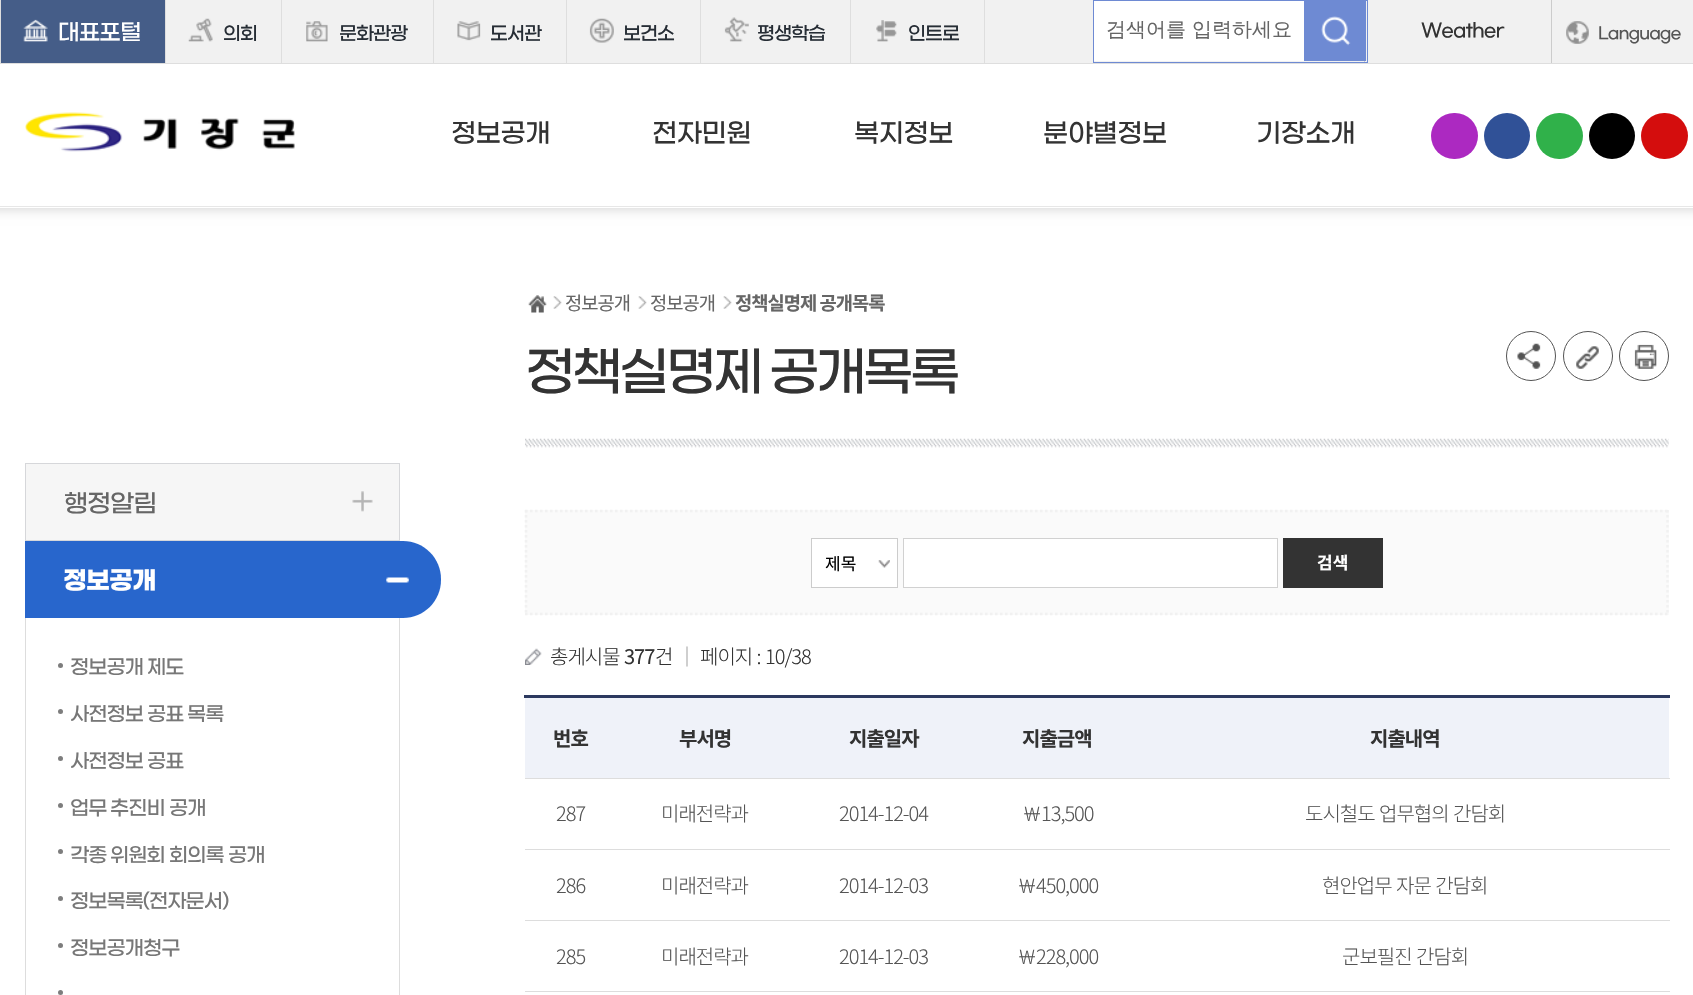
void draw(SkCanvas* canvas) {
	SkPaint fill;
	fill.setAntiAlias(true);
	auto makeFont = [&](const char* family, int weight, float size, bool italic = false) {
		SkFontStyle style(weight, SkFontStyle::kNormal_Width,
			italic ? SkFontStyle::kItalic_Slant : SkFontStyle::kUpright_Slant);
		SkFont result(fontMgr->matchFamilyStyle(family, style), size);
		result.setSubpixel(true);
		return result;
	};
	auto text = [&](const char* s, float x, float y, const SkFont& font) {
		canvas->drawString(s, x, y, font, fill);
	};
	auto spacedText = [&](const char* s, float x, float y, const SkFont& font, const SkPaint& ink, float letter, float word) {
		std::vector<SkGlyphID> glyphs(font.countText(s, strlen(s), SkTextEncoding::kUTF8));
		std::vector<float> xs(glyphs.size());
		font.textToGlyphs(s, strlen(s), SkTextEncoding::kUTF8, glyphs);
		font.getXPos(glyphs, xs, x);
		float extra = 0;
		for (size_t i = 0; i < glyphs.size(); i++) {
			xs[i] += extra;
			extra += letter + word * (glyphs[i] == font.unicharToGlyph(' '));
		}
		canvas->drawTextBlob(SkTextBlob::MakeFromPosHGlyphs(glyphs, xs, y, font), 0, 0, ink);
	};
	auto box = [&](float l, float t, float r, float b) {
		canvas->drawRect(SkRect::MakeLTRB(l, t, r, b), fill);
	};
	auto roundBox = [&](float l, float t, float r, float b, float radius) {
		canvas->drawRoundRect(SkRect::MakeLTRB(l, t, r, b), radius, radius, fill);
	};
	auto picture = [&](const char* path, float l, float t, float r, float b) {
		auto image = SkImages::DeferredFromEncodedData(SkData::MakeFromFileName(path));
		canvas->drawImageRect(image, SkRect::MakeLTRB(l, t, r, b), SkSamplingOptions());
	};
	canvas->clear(0xFFFFFFFF);
	fill.setColor(0x33000000);
	fill.setMaskFilter(SkMaskFilter::MakeBlur(kNormal_SkBlurStyle, 6));
	canvas->drawRect(SkRect::MakeLTRB(-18, 0, 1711, 208), fill);
	fill.setMaskFilter(nullptr);
	fill.setColor(0xFFF1F1F1);
	box(166, 0, 1693, 63);
	fill.setColor(0xFFDEDEDE);
	box(0, 63, 1693, 64);
	box(0, 0, 1, 63);
	fill.setColor(0xFF455D88);
	box(1, 0, 165, 63);
	picture("image0.png", 23, 19, 48, 42);
	fill.setColor(0xFFDEDEDE);
	box(165, 0, 166, 63);
	picture("image1.png", 188, 18, 213, 42);
	box(281, 0, 282, 63);
	picture("image2.png", 306, 21, 328, 42);
	box(433, 0, 434, 63);
	picture("image3.png", 457, 21, 481, 41);
	box(566, 0, 567, 63);
	picture("image4.png", 589, 18, 614, 43);
	box(700, 0, 701, 63);
	picture("image5.png", 724, 17, 749, 42);
	box(984, 0, 985, 63);
	box(850, 0, 851, 63);
	picture("image6.png", 876, 20, 897, 42);
	fill.setColor(0xFFCCCCCC);
	box(1364, 61, 1365, 63);
	fill.setStyle(SkPaint::kStroke_Style);
	fill.setStrokeWidth(1);
	fill.setColor(0xFF6E8AD3);
	canvas->drawRect(SkRect::MakeLTRB(1093.5f, 0.5f, 1367.5f, 62.5f), fill);
	fill.setStyle(SkPaint::kFill_Style);
	fill.setColor(0xFFFFFFFF);
	box(1094, 1, 1304, 61);
	fill.setColor(0xFF6E8AD3);
	box(1304, 1, 1366, 61);
	picture("image7.png", 1321, 16, 1351, 46);
	fill.setColor(0xFFCCCCCC);
	box(1551, 0, 1552, 63);
	picture("image8.png", 1566, 21, 1589, 44);
	fill.setColor(0xFFFFFFFF);
	box(0, 64, 1693, 208);
	picture("image9.png", 25, 112, 295, 152);
	fill.setColor(0xFFE7E7E7);
	box(0, 206, 1693, 207);
	fill.setColor(0xFFAC29C1);
	roundBox(1431, 113, 1478, 159, 23);
	fill.setColor(0xFF305197);
	canvas->drawCircle(1507, 136, 23, fill);
	fill.setColor(0xFF30B14A);
	roundBox(1536, 113, 1583, 159, 23);
	fill.setColor(0xFF000000);
	canvas->drawCircle(1612, 136, 23, fill);
	fill.setColor(0xFFD40D0D);
	roundBox(1641, 113, 1688, 159, 23);
	fill.setColor(0xFFD6D7DA);
	box(25, 463, 400, 464);
	fill.setColor(0xFFF6F6F6);
	box(26, 464, 399, 540);
	fill.setColor(0xFFD6D7DA);
	box(399, 464, 400, 541);
	box(25, 540, 400, 541);
	box(25, 464, 26, 541);
	picture("image10.png", 352, 491, 373, 512);
	fill.setColor(0xFF2866CC);
	canvas->drawPath(SkPathBuilder().moveTo(25, 541).lineTo(403, 541).cubicTo(424, 541, 441, 558, 441, 579).lineTo(441, 580).cubicTo(441, 601, 424, 618, 403, 618).lineTo(25, 618).close().detach(), fill);
	picture("image11.png", 386, 577, 409, 583);
	fill.setColor(0xFFDDDDDD);
	box(399, 618, 400, 995);
	box(25, 618, 26, 995);
	fill.setColor(0xFF7D7D7D);
	canvas->drawCircle(60.5f, 665.5f, 2.5f, fill);
	canvas->drawCircle(60.5f, 711.5f, 2.5f, fill);
	canvas->drawCircle(60.5f, 758.5f, 2.5f, fill);
	canvas->drawCircle(60.5f, 805.5f, 2.5f, fill);
	canvas->drawCircle(60.5f, 851.5f, 2.5f, fill);
	canvas->drawCircle(60.5f, 898.5f, 2.5f, fill);
	canvas->drawCircle(60.5f, 945.5f, 2.5f, fill);
	canvas->drawCircle(60.5f, 992.5f, 2.5f, fill);
	picture("image12.png", 528, 295, 547, 313);
	picture("image13.png", 553, 296, 562, 309);
	picture("image14.png", 638, 296, 647, 309);
	picture("image14.png", 723, 296, 732, 309);
	picture("image15.png", 1517, 343, 1541, 369);
	fill.setStyle(SkPaint::kStroke_Style);
	fill.setColor(0xFF535353);
	canvas->drawCircle(1531, 356, 24.5f, fill);
	picture("image16.png", 1576, 346, 1599, 369);
	canvas->drawCircle(1588, 356, 24.5f, fill);
	picture("image17.png", 1634, 344, 1657, 369);
	canvas->drawCircle(1644, 356, 24.5f, fill);
	picture("image18.png", 525, 438, 1669, 448);
	fill.setStyle(SkPaint::kFill_Style);
	fill.setColor(0xFFFAFAFA);
	box(525, 510, 1669, 615);
	fill.setStyle(SkPaint::kStroke_Style);
	fill.setStrokeWidth(2.5f);
	fill.setColor(0xFFF1F1F1);
	fill.setPathEffect(SkDashPathEffect::Make({{2.5f, 2.5f}}, 0));
	canvas->drawPath(SkPathBuilder().moveTo(525, 511).lineTo(1669, 511).detach(), fill);
	fill.setPathEffect(nullptr);
	fill.setPathEffect(SkDashPathEffect::Make({{2.5f, 2.5f}}, 0));
	canvas->drawPath(SkPathBuilder().moveTo(1667.5f, 510).lineTo(1667.5f, 615).detach(), fill);
	fill.setPathEffect(nullptr);
	fill.setPathEffect(SkDashPathEffect::Make({{2.5f, 2.5f}}, 0));
	canvas->drawPath(SkPathBuilder().moveTo(525, 614).lineTo(1669, 614).detach(), fill);
	fill.setPathEffect(nullptr);
	fill.setPathEffect(SkDashPathEffect::Make({{2.5f, 2.5f}}, 0));
	canvas->drawPath(SkPathBuilder().moveTo(526, 510).lineTo(526, 615).detach(), fill);
	fill.setPathEffect(nullptr);
	fill.setStyle(SkPaint::kFill_Style);
	fill.setColor(0xFFFFFFFF);
	box(812, 539, 897, 587);
	picture("image19.png", 878, 560, 890, 568);
	fill.setStyle(SkPaint::kStroke_Style);
	fill.setStrokeWidth(1);
	fill.setColor(0xFFCCCCCC);
	canvas->drawRect(SkRect::MakeLTRB(811.5f, 538.5f, 897.5f, 587.5f), fill);
	fill.setStyle(SkPaint::kFill_Style);
	fill.setColor(0xFFFFFFFF);
	canvas->drawRect(SkRect::MakeLTRB(903.5f, 538.5f, 1277.5f, 587.5f), fill);
	fill.setStyle(SkPaint::kStroke_Style);
	fill.setColor(0xFFD1D1D1);
	canvas->drawRect(SkRect::MakeLTRB(903.5f, 538.5f, 1277.5f, 587.5f), fill);
	fill.setStyle(SkPaint::kFill_Style);
	fill.setColor(0xFF333333);
	box(1283, 538, 1383, 588);
	picture("image20.png", 525, 648, 542, 665);
	fill.setColor(0xFFEFF2F9);
	box(525, 698, 1669, 778);
	fill.setColor(0xFFDDDDDD);
	box(525, 778, 1670, 779);
	fill.setColor(0xFF2C395F);
	box(524, 695, 1670, 698);
	fill.setColor(0xFFDDDDDD);
	box(525, 849, 1670, 850);
	box(525, 920, 1670, 921);
	box(525, 991, 1670, 992);
	auto font1 = makeFont("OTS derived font", 500, 22.5f);
	fill.setColor(0xFFFFFFFF);
	spacedText("대표포털", 58, 39, font1, fill, -1, 0);
	auto font2 = makeFont("OTS derived font", 500, 18.75f);
	fill.setColor(0xFF262D35);
	spacedText("의회", 223, 39, font2, fill, -1, 0);
	spacedText("문화관광", 339, 39, font2, fill, -1, 0);
	spacedText("도서관", 490, 39, font2, fill, -1, 0);
	spacedText("보건소", 623, 39, font2, fill, -1, 0);
	spacedText("평생학습", 757, 39, font2, fill, -1, 0);
	spacedText("인트로", 908, 39, font2, fill, -1, 0);
	auto font3 = makeFont("WenQuanYi Zen Hei", 500, 20);
	fill.setColor(0xFF666666);
	text("검색어를 입력하세요", 1106, 36, font3);
	fill.setColor(0xFF333333);
	spacedText("Weather", 1421, 36, font2, fill, -1, 0);
	auto font4 = makeFont("OTS derived font", 500, 16.25f);
	fill.setColor(0xFF555555);
	spacedText("Language", 1598, 38, font4, fill, -1, 0);
	auto font5 = makeFont("OTS derived font", 500, 26.25f);
	fill.setColor(0xFF333333);
	spacedText("정보공개", 451, 141, font5, fill, -0.5f, 0);
	spacedText("전자민원", 652, 141, font5, fill, -0.5f, 0);
	spacedText("복지정보", 854, 141, font5, fill, -0.5f, 0);
	spacedText("분야별정보", 1043, 141, font5, fill, -0.5f, 0);
	spacedText("기장소개", 1256, 141, font5, fill, -0.5f, 0);
	auto font6 = makeFont("OTS derived font", 500, 25);
	fill.setColor(0xFF666666);
	spacedText("행정알림", 64, 511, font6, fill, -1, 0);
	auto font7 = makeFont("OTS derived font", 700, 25);
	fill.setColor(0xFFFFFFFF);
	spacedText("정보공개", 63, 588, font7, fill, -1, 0);
	auto font8 = makeFont("OTS derived font", 500, 20);
	fill.setColor(0xFF777777);
	spacedText("정보공개", 70, 673, font8, fill, -1, 0);
	spacedText("제도", 147, 673, font8, fill, -1, 0);
	spacedText("사전정보", 70, 720, font8, fill, -1, 0);
	spacedText("공표", 147, 720, font8, fill, -1, 0);
	spacedText("목록", 187, 720, font8, fill, -1, 0);
	spacedText("사전정보", 70, 767, font8, fill, -1, 0);
	spacedText("공표", 147, 767, font8, fill, -1, 0);
	spacedText("업무", 70, 814, font8, fill, -1, 0);
	spacedText("추진비", 110, 814, font8, fill, -1, 0);
	spacedText("공개", 169, 814, font8, fill, -1, 0);
	spacedText("각종", 70, 861, font8, fill, -1, 0);
	spacedText("위원회", 110, 861, font8, fill, -1, 0);
	spacedText("회의록", 169, 861, font8, fill, -1, 0);
	spacedText("공개", 228, 861, font8, fill, -1, 0);
	spacedText("정보목록(전자문서)", 70, 907, font8, fill, -1, 0);
	spacedText("정보공개청구", 70, 954, font8, fill, -1, 0);
	auto font9 = makeFont("Noto Sans KR", 400, 18.75f);
	fill.setColor(0xFF666666);
	spacedText("정보공개", 565, 310, font9, fill, -1, 0);
	spacedText("정보공개", 650, 310, font9, fill, -1, 0);
	canvas->save();
	canvas->clipRect(SkRect::MakeLTRB(525, 288, 885, 318));
	auto font10 = makeFont("Noto Sans KR", 700, 18.75f);
	spacedText("정책실명제 공개목록", 735, 310, font10, fill, -1, 0);
	canvas->restore();
	auto font11 = makeFont("OTS derived font", 500, 52.5f);
	fill.setColor(0xFF333333);
	spacedText("정책실명제", 525, 388, font11, fill, -3.5f, 0);
	spacedText("공개목록", 769, 388, font11, fill, -3.5f, 0);
	auto font12 = makeFont("Noto Sans KR", 400, 17);
	fill.setColor(0xFF000000);
	text("제목", 825, 570, font12);
	auto font13 = makeFont("Noto Sans KR", 700, 17);
	fill.setColor(0xFFFFFFFF);
	text("검색", 1317, 569, font13);
	auto font14 = makeFont("Noto Sans KR", 300, 20);
	fill.setColor(0xFF333333);
	spacedText("총게시물", 550, 664, font14, fill, -1, 0);
	auto font15 = makeFont("Noto Sans KR", 400, 20);
	spacedText("377", 624, 664, font15, fill, -1, 0);
	spacedText("건", 655, 664, font14, fill, -1, 0);
	fill.setColor(0xFF999999);
	spacedText("｜", 677, 664, font14, fill, -1, 0);
	fill.setColor(0xFF333333);
	spacedText("페이지 : 10/38", 700, 664, font14, fill, -1, 1);
	auto font16 = makeFont("Noto Sans KR", 700, 20);
	spacedText("번호", 553, 746, font16, fill, -1, 0);
	spacedText("부서명", 679, 746, font16, fill, -1, 0);
	spacedText("지출일자", 849, 746, font16, fill, -1, 0);
	spacedText("지출금액", 1022, 746, font16, fill, -1, 0);
	spacedText("지출내역", 1370, 746, font16, fill, -1, 0);
	fill.setColor(0xFF555555);
	spacedText("287", 556, 821, font14, fill, -1, 0);
	spacedText("미래전략과", 661, 821, font14, fill, -1, 0);
	spacedText("2014-12-04", 839, 821, font14, fill, -1, 0);
	spacedText("￦13,500", 1022, 821, font14, fill, -1, 0);
	spacedText("도시철도 업무협의 간담회", 1305, 821, font14, fill, -1, 1);
	spacedText("286", 556, 893, font14, fill, -1, 0);
	spacedText("미래전략과", 661, 893, font14, fill, -1, 0);
	spacedText("2014-12-03", 839, 893, font14, fill, -1, 0);
	spacedText("￦450,000", 1017, 893, font14, fill, -1, 0);
	spacedText("현안업무 자문 간담회", 1322, 893, font14, fill, -1, 1);
	spacedText("285", 556, 964, font14, fill, -1, 0);
	spacedText("미래전략과", 661, 964, font14, fill, -1, 0);
	spacedText("2014-12-03", 839, 964, font14, fill, -1, 0);
	spacedText("￦228,000", 1017, 964, font14, fill, -1, 0);
	spacedText("군보필진 간담회", 1342, 964, font14, fill, -1, 1);
}
